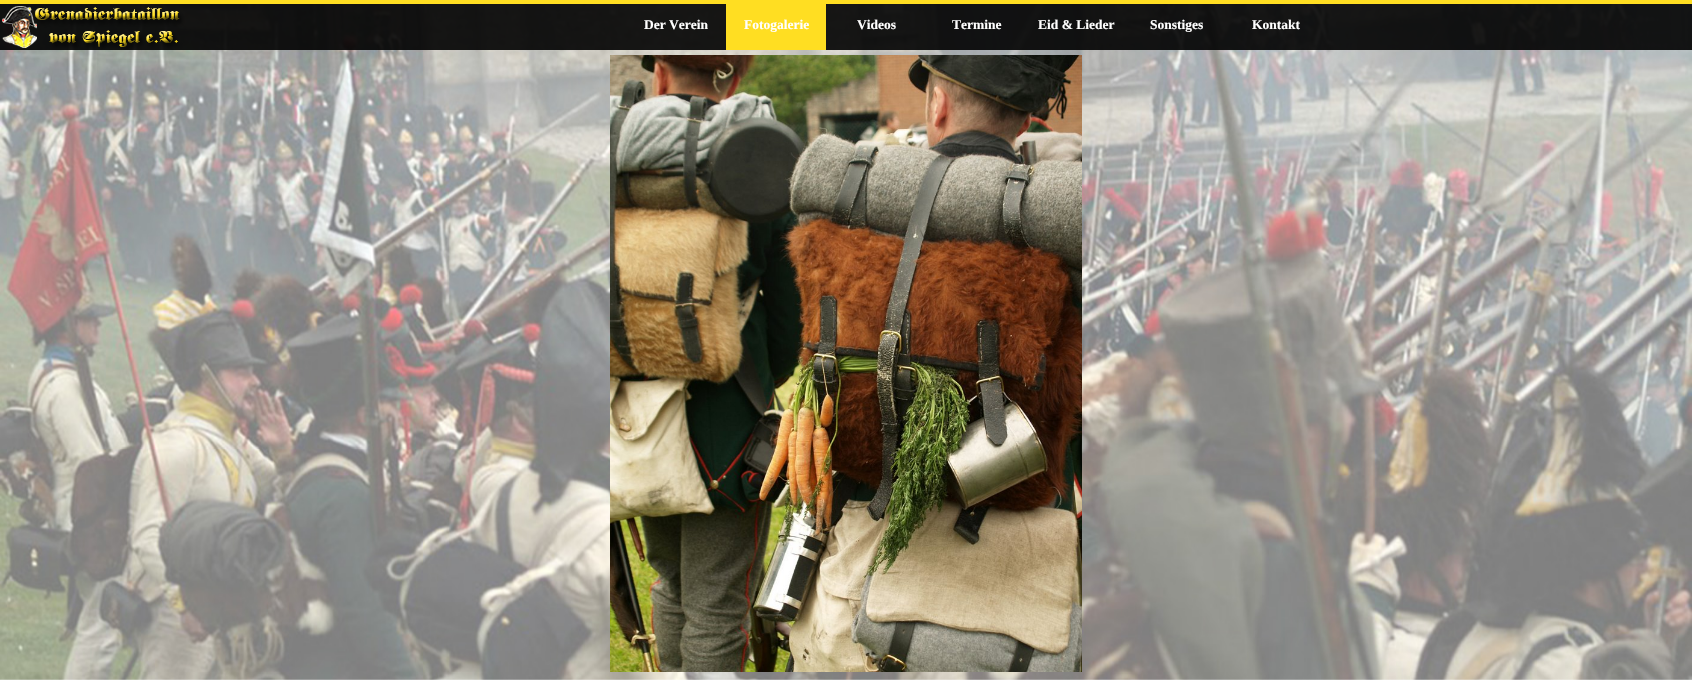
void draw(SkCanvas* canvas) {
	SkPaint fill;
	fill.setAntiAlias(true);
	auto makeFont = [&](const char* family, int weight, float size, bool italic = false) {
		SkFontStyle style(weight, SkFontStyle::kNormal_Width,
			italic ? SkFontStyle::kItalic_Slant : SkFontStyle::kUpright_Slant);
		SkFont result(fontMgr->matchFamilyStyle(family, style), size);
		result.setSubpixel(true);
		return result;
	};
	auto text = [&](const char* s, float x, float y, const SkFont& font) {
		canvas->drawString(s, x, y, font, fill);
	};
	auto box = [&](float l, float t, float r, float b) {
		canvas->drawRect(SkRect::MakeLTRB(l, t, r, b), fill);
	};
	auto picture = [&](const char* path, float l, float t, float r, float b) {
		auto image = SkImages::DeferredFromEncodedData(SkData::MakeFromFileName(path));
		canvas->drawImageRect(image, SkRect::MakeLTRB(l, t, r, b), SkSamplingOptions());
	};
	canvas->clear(0xFFFFFFFF);
	picture("image0.png", 0, 4, 1692, 680);
	picture("image1.png", 0, 0, 1692, 50);
	fill.setColor(0xFFFFDE22);
	box(726, 4, 826, 50);
	picture("image2.png", 610, 55, 1082, 672);
	auto font1 = makeFont("Liberation Serif", 700, 13.5f);
	fill.setColor(0xFFFFFFFF);
	text("Der Verein", 644, 29, font1);
	text("Fotogalerie", 744, 29, font1);
	text("Videos", 857, 29, font1);
	text("Termine", 952, 29, font1);
	text("Eid & Lieder", 1038, 29, font1);
	text("Sonstiges", 1150, 29, font1);
	text("Kontakt", 1252, 29, font1);
}
